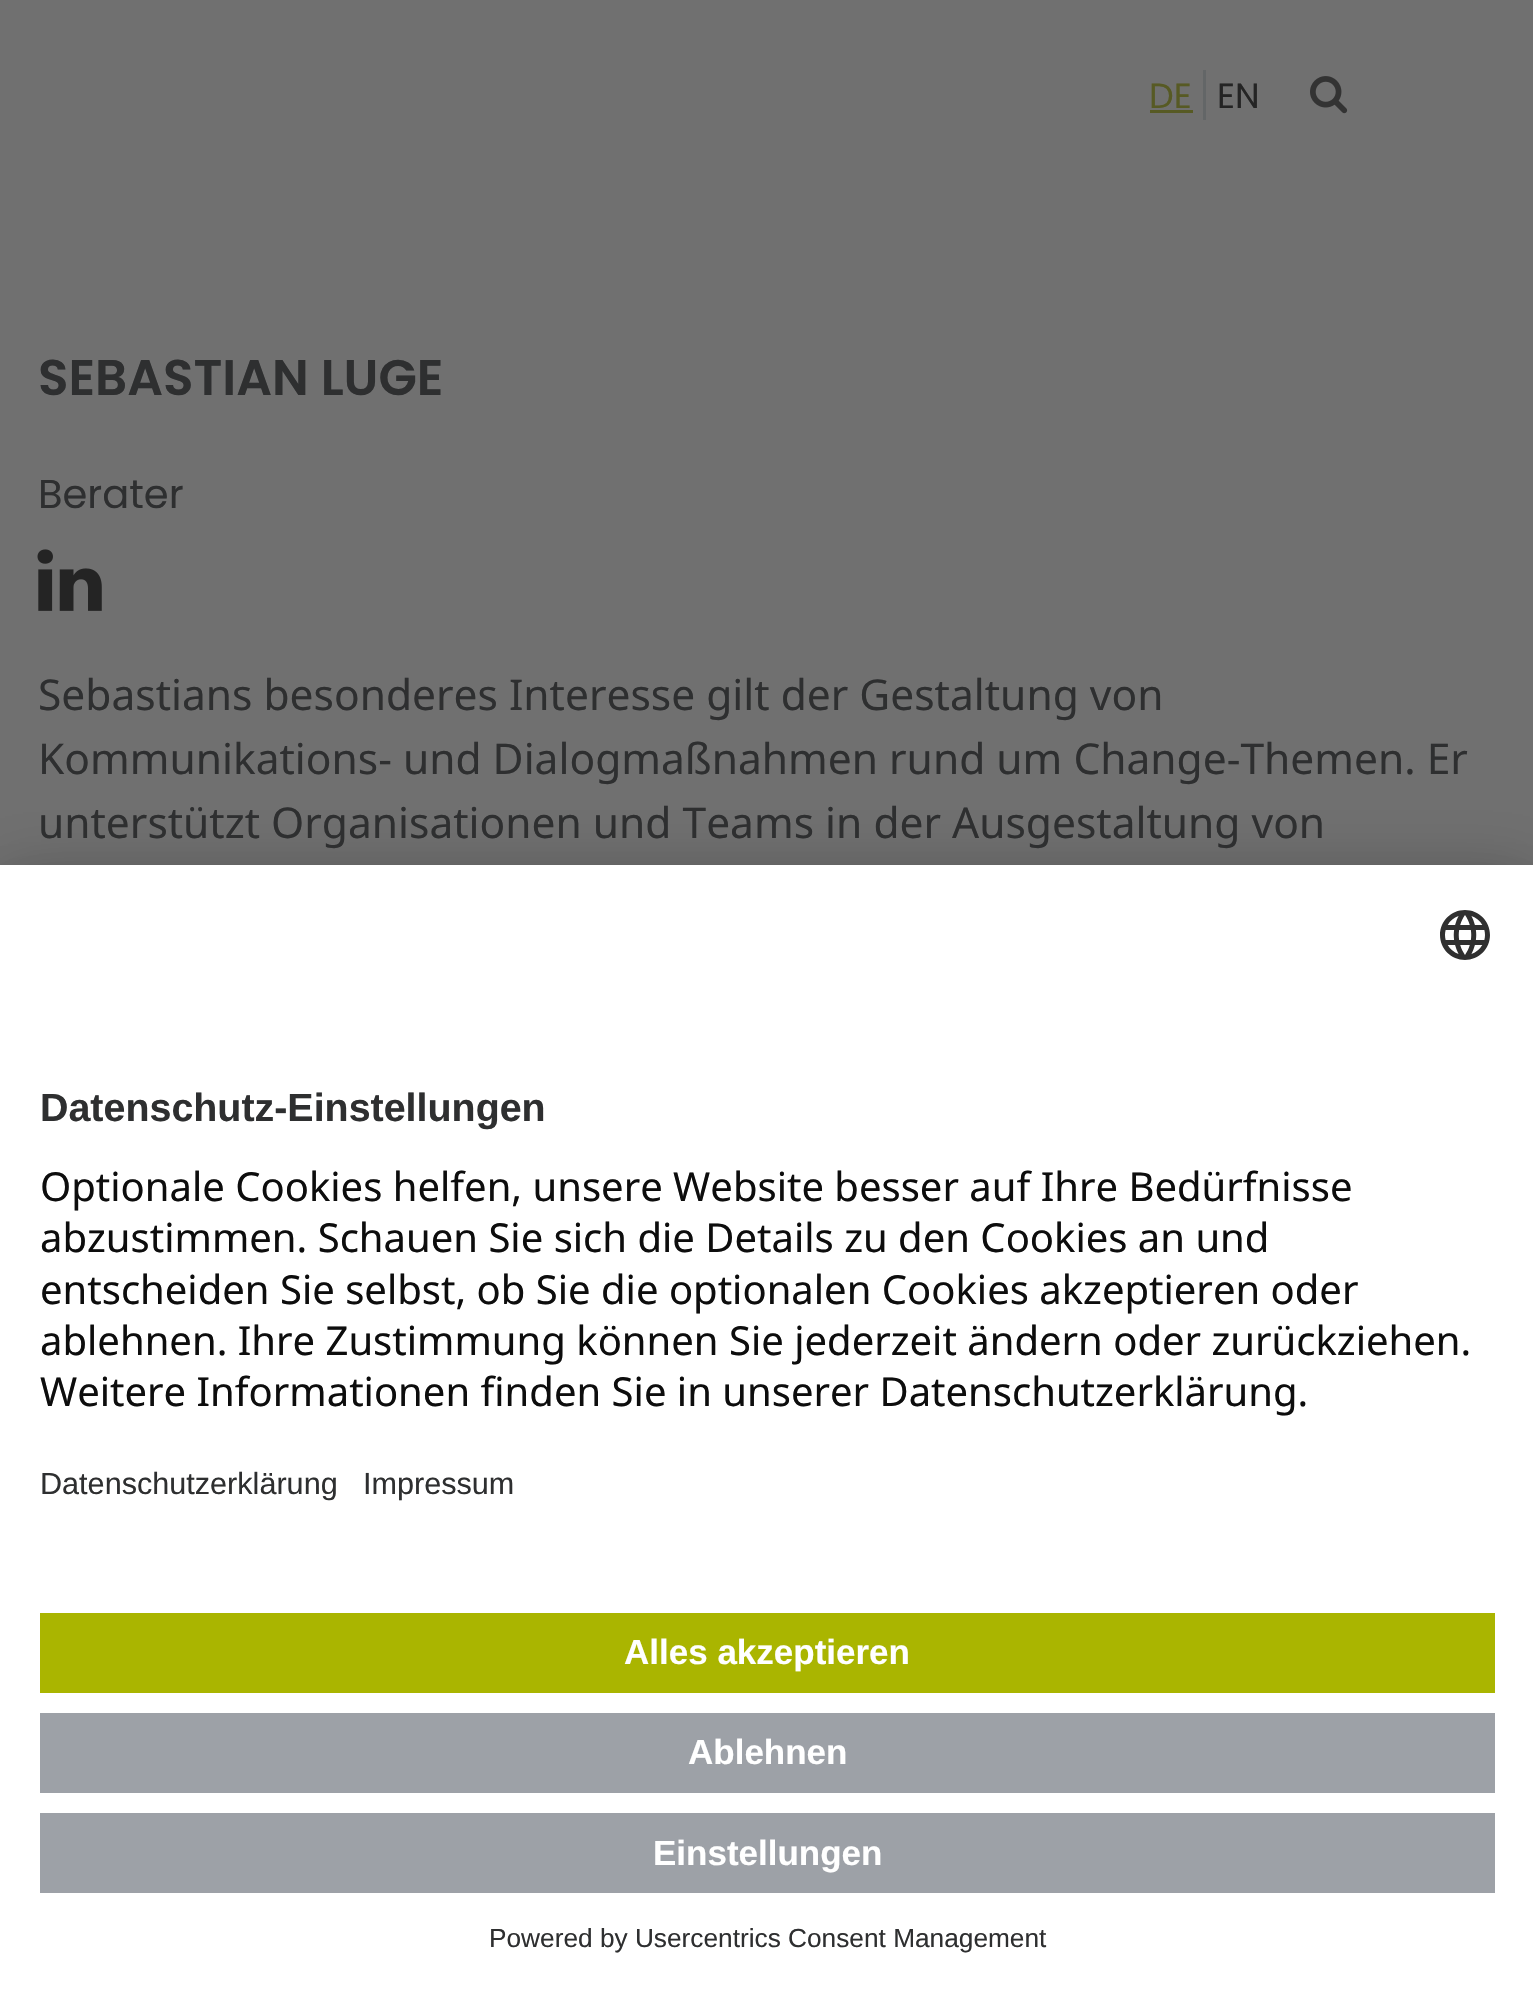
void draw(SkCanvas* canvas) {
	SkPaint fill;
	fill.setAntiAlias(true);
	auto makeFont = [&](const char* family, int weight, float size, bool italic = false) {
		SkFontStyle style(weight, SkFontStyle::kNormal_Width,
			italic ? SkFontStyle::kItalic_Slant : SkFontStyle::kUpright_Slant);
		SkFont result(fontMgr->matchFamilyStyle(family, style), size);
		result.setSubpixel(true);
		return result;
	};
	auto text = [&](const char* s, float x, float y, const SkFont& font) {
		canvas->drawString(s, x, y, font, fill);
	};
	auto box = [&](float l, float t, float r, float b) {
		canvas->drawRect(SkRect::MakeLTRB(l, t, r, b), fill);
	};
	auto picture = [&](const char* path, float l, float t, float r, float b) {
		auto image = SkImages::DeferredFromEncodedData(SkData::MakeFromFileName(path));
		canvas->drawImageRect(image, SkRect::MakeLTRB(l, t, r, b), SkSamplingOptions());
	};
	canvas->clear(0xFF707070);
	fill.setColor(0xFF575A24);
	box(1150, 110, 1193, 113);
	fill.setColor(0xFF636667);
	box(1203, 70, 1206, 120);
	picture("image0.png", 1310, 76, 1348, 114);
	picture("image1.png", 37, 549, 102, 611);
	fill.setColor(0x4D000000);
	fill.setMaskFilter(SkMaskFilter::MakeBlur(kNormal_SkBlurStyle, 35));
	canvas->drawRect(SkRect::MakeLTRB(0, 915, 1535, 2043), fill);
	fill.setMaskFilter(nullptr);
	fill.setColor(0x38000000);
	fill.setMaskFilter(SkMaskFilter::MakeBlur(kNormal_SkBlurStyle, 32.5f));
	canvas->drawRect(SkRect::MakeLTRB(0, 878, 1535, 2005), fill);
	fill.setMaskFilter(nullptr);
	fill.setColor(0xFFFFFFFF);
	box(0, 865, 1533, 1992);
	picture("image2.png", 1440, 910, 1490, 960);
	fill.setColor(0xFFAAB500);
	box(40, 1613, 1495, 1693);
	fill.setColor(0xFF9DA1A7);
	box(40, 1713, 1495, 1793);
	box(40, 1813, 1495, 1893);
	auto font1 = makeFont("Poppins", 400, 35);
	fill.setColor(0xFF575A24);
	text("DE", 1149, 108, font1);
	fill.setColor(0xFF242424);
	text("EN", 1217, 108, font1);
	auto font2 = makeFont("Poppins", 600, 50);
	fill.setColor(0xFF2E2F30);
	text("SEBASTIAN LUGE", 38, 395, font2);
	auto font3 = makeFont("Poppins", 400, 40);
	text("Berater", 38, 508, font3);
	auto font4 = makeFont("Noto Sans", 400, 42.5f);
	text("Sebastians besonderes Interesse gilt der Gestaltung von", 38, 710, font4);
	text("Kommunikations- und Dialogmaßnahmen rund um Change-Themen. Er", 38, 774, font4);
	text("unterstützt Organisationen und Teams in der Ausgestaltung von", 38, 838, font4);
	auto font5 = makeFont("Liberation Sans", 700, 39.4f);
	text("Datenschutz-Einstellungen", 40, 1121, font5);
	auto font6 = makeFont("Noto Sans", 400, 40);
	fill.setColor(0xFF0D0D0D);
	text("Optionale Cookies helfen, unsere Website besser auf Ihre Bedürfnisse", 40, 1201, font6);
	text("abzustimmen. Schauen Sie sich die Details zu den Cookies an und", 40, 1252, font6);
	text("entscheiden Sie selbst, ob Sie die optionalen Cookies akzeptieren oder", 40, 1304, font6);
	text("ablehnen. Ihre Zustimmung können Sie jederzeit ändern oder zurückziehen.", 40, 1355, font6);
	text("Weitere Informationen finden Sie in unserer Datenschutzerklärung.", 40, 1406, font6);
	auto font7 = makeFont("Liberation Sans", 400, 30.6f);
	fill.setColor(0xFF2E2F30);
	text("Datenschutzerklärung", 40, 1494, font7);
	text("Impressum", 363, 1494, font7);
	auto font8 = makeFont("Liberation Sans", 700, 35);
	fill.setColor(0xFFFFFFFF);
	text("Alles akzeptieren", 624, 1664, font8);
	text("Ablehnen", 688, 1764, font8);
	text("Einstellungen", 653, 1865, font8);
	auto font9 = makeFont("Liberation Sans", 400, 26.25f);
	fill.setColor(0xFF2E2F30);
	text("Powered by Usercentrics Consent Management", 489, 1947, font9);
}
